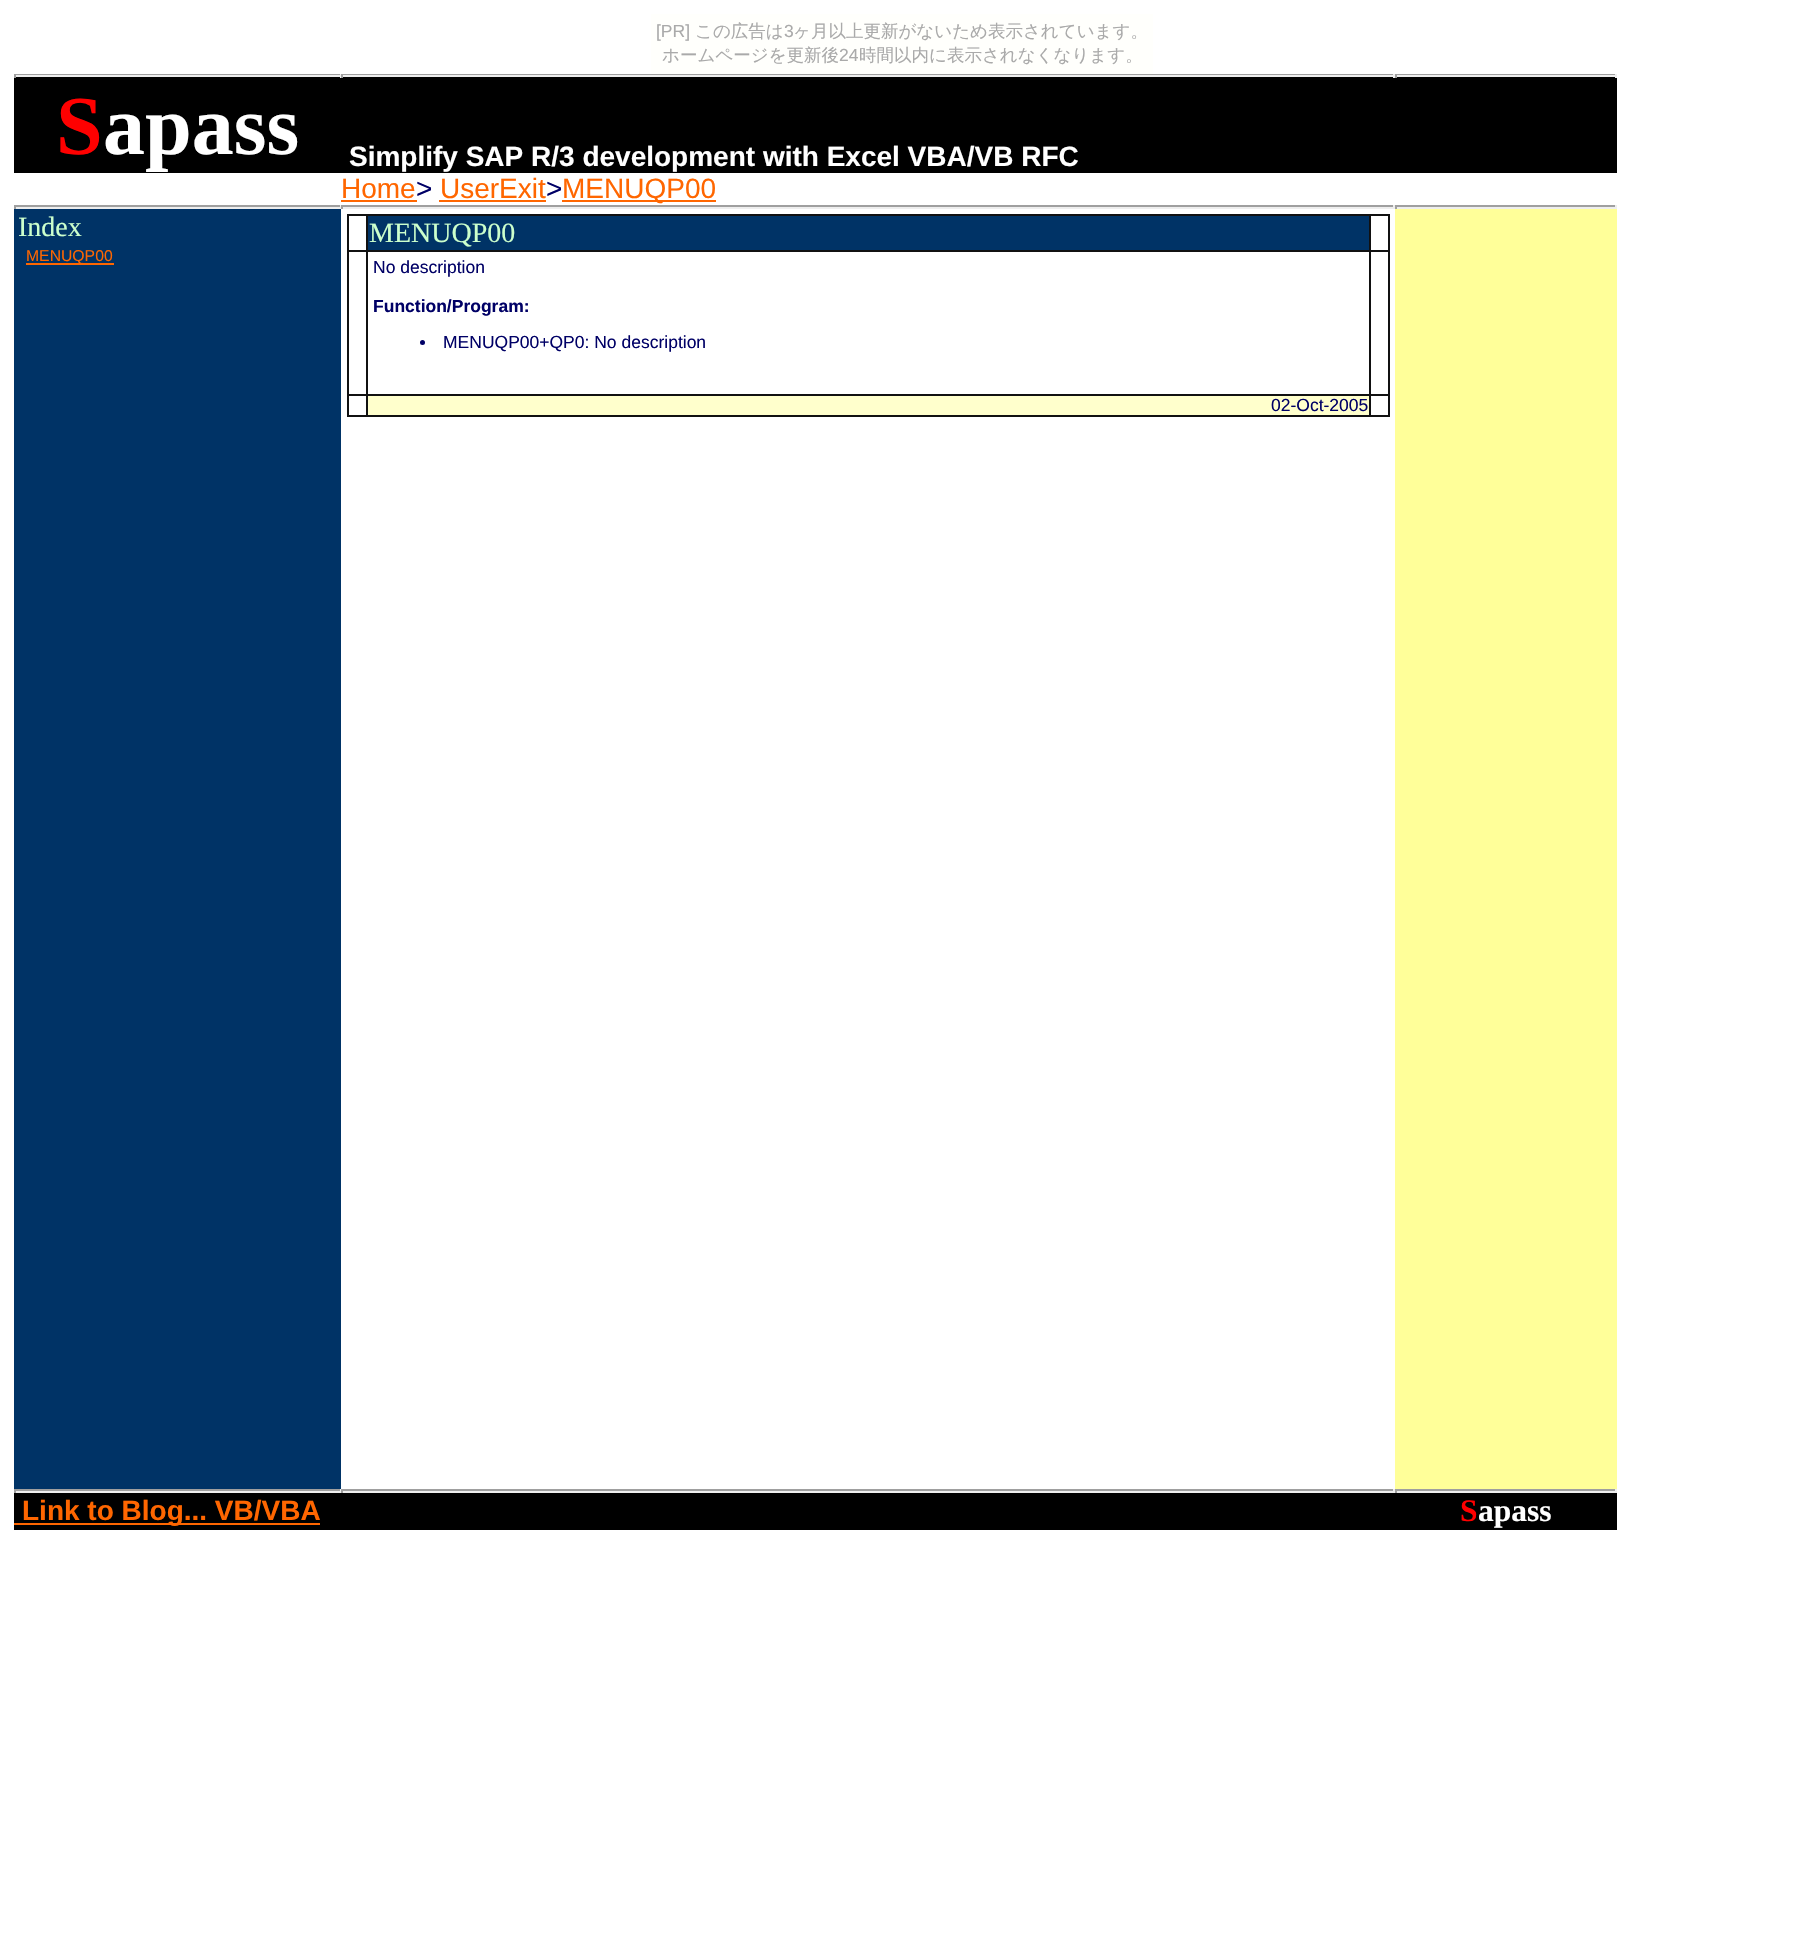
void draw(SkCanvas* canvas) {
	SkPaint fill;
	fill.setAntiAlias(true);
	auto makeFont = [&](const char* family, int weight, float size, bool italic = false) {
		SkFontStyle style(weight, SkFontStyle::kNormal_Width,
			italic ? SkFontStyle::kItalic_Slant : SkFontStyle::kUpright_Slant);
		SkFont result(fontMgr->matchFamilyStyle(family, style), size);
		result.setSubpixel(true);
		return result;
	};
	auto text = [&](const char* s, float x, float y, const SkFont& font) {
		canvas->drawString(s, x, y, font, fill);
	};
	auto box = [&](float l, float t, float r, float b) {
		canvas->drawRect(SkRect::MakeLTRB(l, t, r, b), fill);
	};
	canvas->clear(0xFFFFFFFF);
	fill.setColor(0xFFFFFFFC);
	box(651, 14, 1153, 74);
	fill.setColor(0xFF9F9F9F);
	box(14, 74, 1617, 75);
	fill.setColor(0xFF000000);
	box(14, 77, 1617, 173);
	fill.setColor(0xFFEEEEEE);
	box(340, 74, 341, 78);
	box(14, 75, 341, 77);
	fill.setColor(0xFF9F9F9F);
	box(14, 74, 16, 78);
	fill.setColor(0xFFEEEEEE);
	box(1393, 74, 1395, 78);
	box(341, 75, 1395, 77);
	fill.setColor(0xFF9F9F9F);
	box(341, 74, 343, 78);
	fill.setColor(0xFFEEEEEE);
	box(1615, 74, 1617, 78);
	box(1395, 75, 1617, 77);
	fill.setColor(0xFF9F9F9F);
	box(1395, 74, 1397, 78);
	fill.setColor(0xFFFF6600);
	box(341, 200, 417, 202);
	box(439, 200, 546, 202);
	box(562, 200, 716, 202);
	fill.setColor(0xFF9F9F9F);
	box(14, 205, 1617, 207);
	fill.setColor(0xFFEEEEEE);
	box(340, 205, 341, 209);
	box(14, 207, 341, 209);
	fill.setColor(0xFF9F9F9F);
	box(14, 205, 16, 209);
	fill.setColor(0xFFEEEEEE);
	box(1393, 205, 1395, 209);
	box(341, 207, 1395, 209);
	fill.setColor(0xFF9F9F9F);
	box(341, 205, 343, 209);
	fill.setColor(0xFFEEEEEE);
	box(1615, 205, 1617, 209);
	box(1395, 207, 1617, 209);
	fill.setColor(0xFF9F9F9F);
	box(1395, 205, 1397, 209);
	fill.setColor(0xFF003366);
	box(14, 209, 341, 1489);
	fill.setColor(0xFFFF6600);
	box(26, 263, 114, 265);
	fill.setColor(0xFF111111);
	box(347, 214, 1390, 216);
	box(1388, 214, 1390, 417);
	box(347, 415, 1390, 417);
	box(347, 214, 349, 417);
	box(1369, 250, 1390, 252);
	box(1369, 394, 1390, 396);
	box(1369, 394, 1371, 417);
	box(366, 394, 1370, 396);
	box(1369, 250, 1371, 396);
	box(366, 250, 1370, 252);
	box(366, 394, 368, 417);
	box(347, 394, 368, 396);
	box(366, 250, 368, 396);
	box(347, 250, 368, 252);
	box(366, 214, 368, 252);
	fill.setColor(0xFF003366);
	box(368, 216, 1369, 250);
	fill.setColor(0xFF111111);
	box(1369, 214, 1371, 252);
	fill.setColor(0xFF000066);
	canvas->drawCircle(422.5f, 342.5f, 2.5f, fill);
	fill.setColor(0xFFFFFFCC);
	box(368, 396, 1369, 415);
	fill.setColor(0xFFFFFF99);
	box(1395, 209, 1617, 1489);
	fill.setColor(0xFF9F9F9F);
	box(14, 1489, 1617, 1491);
	fill.setColor(0xFFEEEEEE);
	box(340, 1489, 341, 1493);
	box(14, 1491, 341, 1493);
	fill.setColor(0xFF9F9F9F);
	box(14, 1489, 16, 1493);
	fill.setColor(0xFFEEEEEE);
	box(1393, 1489, 1395, 1493);
	box(341, 1491, 1395, 1493);
	fill.setColor(0xFF9F9F9F);
	box(341, 1489, 343, 1493);
	fill.setColor(0xFFEEEEEE);
	box(1615, 1489, 1617, 1493);
	box(1395, 1491, 1617, 1493);
	fill.setColor(0xFF9F9F9F);
	box(1395, 1489, 1397, 1493);
	fill.setColor(0xFF000000);
	box(14, 1493, 1617, 1530);
	fill.setColor(0xFFFF6600);
	box(14, 1523, 320, 1525);
	auto font1 = makeFont("Liberation Sans", 400, 17.5f);
	fill.setColor(0xFFAAAAAA);
	text("[PR]", 656, 37, font1);
	auto font2 = makeFont("WenQuanYi Zen Hei", 500, 17.5f);
	text("この広告は", 695, 37, font2);
	text("3", 784, 37, font1);
	text("ヶ月以上更新がないため表示されています。", 793, 37, font2);
	text("ホームページを更新後", 662, 61, font2);
	text("24", 839, 61, font1);
	text("時間以内に表示されなくなります。", 859, 61, font2);
	auto font3 = makeFont("Liberation Serif", 700, 84);
	fill.setColor(0xFFFF0000);
	text("S", 56, 154, font3);
	fill.setColor(0xFFFFFFFF);
	text("apass", 103, 154, font3);
	auto font4 = makeFont("Liberation Sans", 700, 28);
	text("Simplify SAP R/3 development with Excel VBA/VB RFC", 349, 166, font4);
	auto font5 = makeFont("Liberation Sans", 400, 28);
	fill.setColor(0xFFFF6600);
	text("Home", 341, 198, font5);
	fill.setColor(0xFF000066);
	text(">", 416, 198, font5);
	fill.setColor(0xFFFF6600);
	text("UserExit", 440, 198, font5);
	fill.setColor(0xFF000066);
	text(">", 546, 198, font5);
	fill.setColor(0xFFFF6600);
	text("MENUQP00", 562, 198, font5);
	auto font6 = makeFont("Liberation Serif", 400, 28);
	fill.setColor(0xFFCCFFCC);
	text("Index", 18, 236, font6);
	auto font7 = makeFont("Liberation Sans", 400, 15.75f);
	fill.setColor(0xFFFF6600);
	text("MENUQP00", 26, 261, font7);
	fill.setColor(0xFFCCFFCC);
	text("MENUQP00", 369, 242, font6);
	fill.setColor(0xFF000066);
	text("No description", 373, 273, font1);
	auto font8 = makeFont("Liberation Sans", 700, 17.5f);
	text("Function/Program:", 373, 312, font8);
	text("MENUQP00+QP0: No description", 443, 348, font1);
	text("02-Oct-2005", 1271, 411, font1);
	fill.setColor(0xFFFF6600);
	text("Link to Blog... VB/VBA", 22, 1520, font4);
	auto font9 = makeFont("Liberation Serif", 700, 31.5f);
	fill.setColor(0xFFFF0000);
	text("S", 1460, 1521, font9);
	fill.setColor(0xFFFFFFFF);
	text("apass", 1478, 1521, font9);
}
